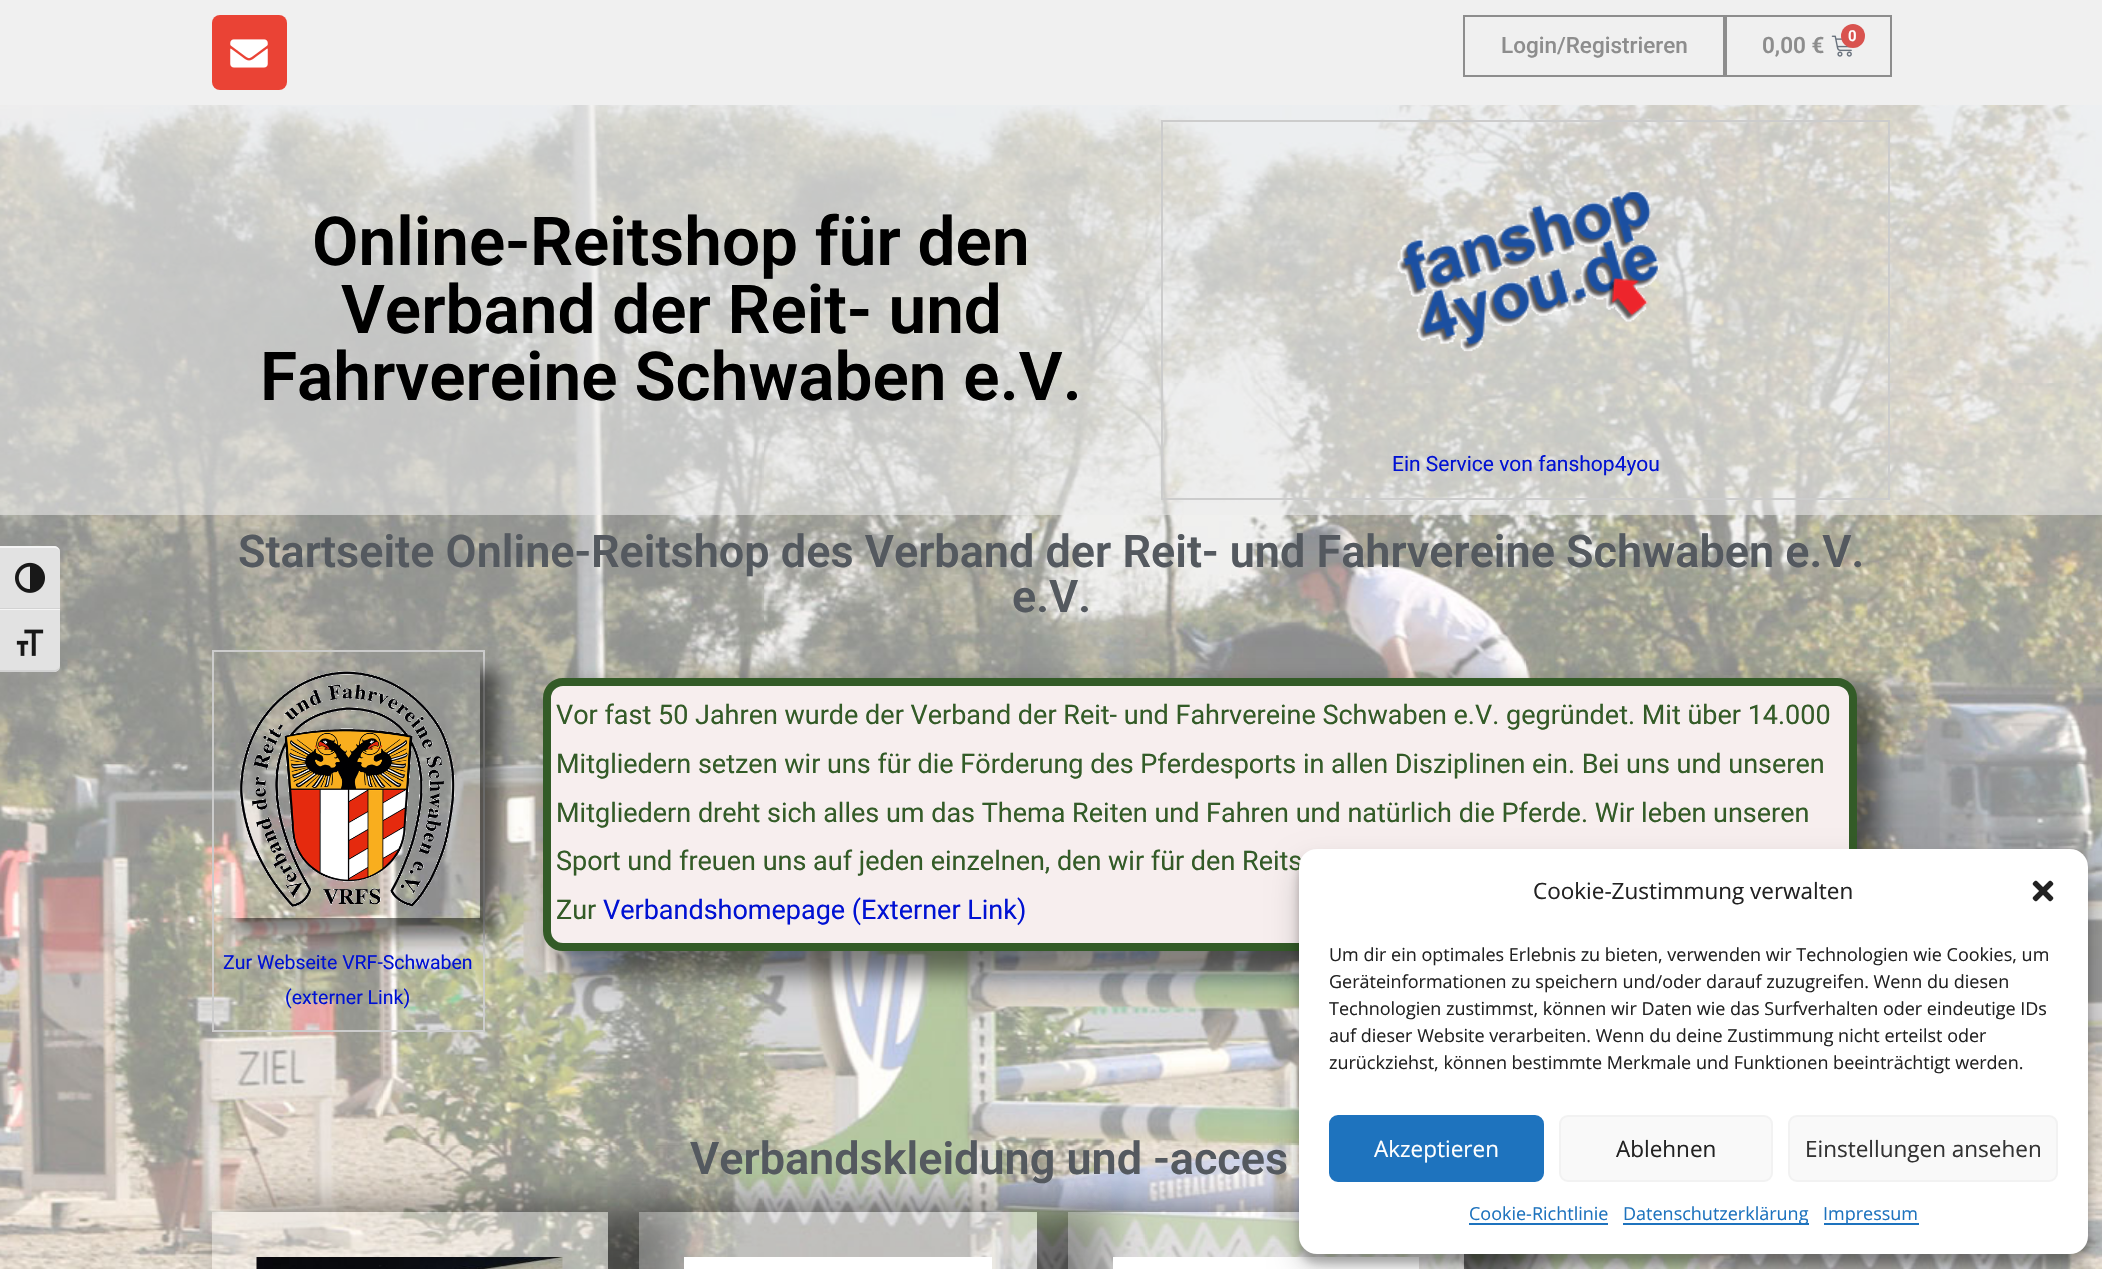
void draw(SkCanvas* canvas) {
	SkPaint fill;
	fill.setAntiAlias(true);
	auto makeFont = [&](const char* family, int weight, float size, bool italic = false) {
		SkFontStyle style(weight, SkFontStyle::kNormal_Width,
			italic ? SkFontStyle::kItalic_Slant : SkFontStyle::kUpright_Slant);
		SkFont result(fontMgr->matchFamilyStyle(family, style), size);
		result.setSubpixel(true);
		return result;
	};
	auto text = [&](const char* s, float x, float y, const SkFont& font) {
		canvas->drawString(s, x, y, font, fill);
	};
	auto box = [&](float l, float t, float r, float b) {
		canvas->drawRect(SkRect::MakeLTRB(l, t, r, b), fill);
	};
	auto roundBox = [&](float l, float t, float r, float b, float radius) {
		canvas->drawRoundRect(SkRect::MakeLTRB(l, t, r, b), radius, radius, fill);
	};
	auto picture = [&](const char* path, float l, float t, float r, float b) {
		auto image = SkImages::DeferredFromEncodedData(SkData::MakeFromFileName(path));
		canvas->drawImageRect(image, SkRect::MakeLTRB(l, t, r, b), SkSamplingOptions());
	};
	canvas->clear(0xFFFFFFFF);
	picture("image0.png", 0, 105, 2102, 1269);
	fill.setColor(0xFFF0F0F0);
	box(0, 0, 2102, 105);
	fill.setColor(0xFFEA4335);
	roundBox(212, 15, 287, 90, 8);
	picture("image1.png", 230, 39, 268, 68);
	fill.setStyle(SkPaint::kStroke_Style);
	fill.setStrokeWidth(2);
	fill.setColor(0xFF8D8D8D);
	canvas->drawRect(SkRect::MakeLTRB(1464, 16, 1724, 76), fill);
	canvas->drawRect(SkRect::MakeLTRB(1726, 16, 1891, 76), fill);
	picture("image2.png", 1831, 35, 1852, 57);
	fill.setStyle(SkPaint::kFill_Style);
	fill.setColor(0xFFD9534F);
	canvas->drawCircle(1853, 36, 12, fill);
	fill.setColor(0x91ECECEC);
	box(0, 105, 2102, 515);
	fill.setStyle(SkPaint::kStroke_Style);
	fill.setColor(0xFFCCCCCC);
	canvas->drawRect(SkRect::MakeLTRB(1162, 121, 1889, 499), fill);
	picture("image3.png", 1397, 190, 1660, 352);
	fill.setStyle(SkPaint::kFill_Style);
	fill.setColor(0xFFE2E2E2);
	canvas->drawPath(SkPathBuilder().moveTo(0, 546).lineTo(54, 546).cubicTo(57.5f, 546, 60, 548.5f, 60, 552).lineTo(60, 609).lineTo(0, 609).close().detach(), fill);
	fill.setColor(0xFFF5F5F5);
	canvas->drawPath(SkPathBuilder().moveTo(0, 546).lineTo(0, 548).lineTo(54, 548).cubicTo(57, 548, 60, 550, 60, 552).cubicTo(60, 549, 57, 546, 54, 546).close().detach(), fill);
	fill.setColor(0xFFD2D2D2);
	box(0, 608, 60, 609);
	picture("image4.png", 15, 562, 45, 593);
	fill.setColor(0xFFE2E2E2);
	canvas->drawPath(SkPathBuilder().moveTo(0, 609).lineTo(60, 609).lineTo(60, 666).cubicTo(60, 669.5f, 57.5f, 672, 54, 672).lineTo(0, 672).close().detach(), fill);
	fill.setColor(0xFFF5F5F5);
	box(0, 609, 60, 610);
	fill.setColor(0xFFD2D2D2);
	canvas->drawPath(SkPathBuilder().moveTo(0, 670).lineTo(0, 672).lineTo(54, 672).cubicTo(57, 672, 60, 669, 60, 666).cubicTo(60, 668, 57, 670, 54, 670).close().detach(), fill);
	picture("image5.png", 16, 629, 44, 656);
	fill.setColor(0x80000000);
	fill.setMaskFilter(SkMaskFilter::MakeBlur(kNormal_SkBlurStyle, 13.5f));
	canvas->drawRoundRect(SkRect::MakeLTRB(555, 690, 1881, 975), 26, 26, fill);
	fill.setMaskFilter(nullptr);
	fill.setColor(0xFFF7EEEE);
	canvas->drawRoundRect(SkRect::MakeLTRB(547, 682, 1853, 947), 16, 16, fill);
	fill.setStyle(SkPaint::kStroke_Style);
	fill.setStrokeWidth(8);
	fill.setColor(0xFF335B27);
	canvas->drawRoundRect(SkRect::MakeLTRB(547, 682, 1853, 947), 16, 16, fill);
	fill.setStrokeWidth(2);
	fill.setColor(0xFFCCCCCC);
	canvas->drawRect(SkRect::MakeLTRB(213, 651, 484, 1031), fill);
	canvas->save();
	canvas->clipPath(SkPathBuilder(SkPathFillType::kEvenOdd).moveTo(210, 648).lineTo(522, 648).lineTo(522, 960).lineTo(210, 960).close().moveTo(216, 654).lineTo(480, 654).lineTo(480, 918).lineTo(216, 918).close().detach(), true);
	fill.setStyle(SkPaint::kFill_Style);
	fill.setColor(0x80000000);
	fill.setMaskFilter(SkMaskFilter::MakeBlur(kNormal_SkBlurStyle, 7.5f));
	canvas->drawRect(SkRect::MakeLTRB(234, 672, 498, 936), fill);
	fill.setMaskFilter(nullptr);
	canvas->restore();
	picture("image6.png", 240, 671, 455, 907);
	canvas->save();
	canvas->clipPath(SkPathBuilder(SkPathFillType::kEvenOdd).moveTo(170, 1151).lineTo(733, 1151).lineTo(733, 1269).lineTo(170, 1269).close().moveTo(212, 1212).lineTo(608, 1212).lineTo(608, 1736).lineTo(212, 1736).close().detach(), true);
	fill.setMaskFilter(SkMaskFilter::MakeBlur(kNormal_SkBlurStyle, 19));
	canvas->drawRect(SkRect::MakeLTRB(228, 1209, 675, 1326), fill);
	fill.setMaskFilter(nullptr);
	canvas->restore();
	fill.setColor(0x47FFFFFF);
	box(212, 1212, 608, 1269);
	picture("image7.png", 256, 1257, 563, 1269);
	canvas->save();
	canvas->clipPath(SkPathBuilder(SkPathFillType::kEvenOdd).moveTo(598, 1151).lineTo(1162, 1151).lineTo(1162, 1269).lineTo(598, 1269).close().moveTo(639, 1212).lineTo(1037, 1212).lineTo(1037, 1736).lineTo(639, 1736).close().detach(), true);
	fill.setColor(0x80000000);
	fill.setMaskFilter(SkMaskFilter::MakeBlur(kNormal_SkBlurStyle, 19));
	canvas->drawRect(SkRect::MakeLTRB(656, 1209, 1104, 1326), fill);
	fill.setMaskFilter(nullptr);
	canvas->restore();
	fill.setColor(0x47FFFFFF);
	box(639, 1212, 1037, 1269);
	fill.setColor(0xFFFFFFFF);
	box(684, 1257, 992, 1269);
	canvas->save();
	canvas->clipPath(SkPathBuilder(SkPathFillType::kEvenOdd).moveTo(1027, 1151).lineTo(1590, 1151).lineTo(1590, 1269).lineTo(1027, 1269).close().moveTo(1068, 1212).lineTo(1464, 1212).lineTo(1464, 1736).lineTo(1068, 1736).close().detach(), true);
	fill.setColor(0x80000000);
	fill.setMaskFilter(SkMaskFilter::MakeBlur(kNormal_SkBlurStyle, 19));
	canvas->drawRect(SkRect::MakeLTRB(1085, 1209, 1532, 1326), fill);
	fill.setMaskFilter(nullptr);
	canvas->restore();
	fill.setColor(0x47FFFFFF);
	box(1068, 1212, 1464, 1269);
	fill.setColor(0xFFFFFFFF);
	box(1113, 1257, 1419, 1269);
	fill.setColor(0x3B000000);
	fill.setMaskFilter(SkMaskFilter::MakeBlur(kNormal_SkBlurStyle, 4.5f));
	canvas->drawRoundRect(SkRect::MakeLTRB(1299, 858, 2088, 1263), 18, 18, fill);
	fill.setMaskFilter(nullptr);
	fill.setColor(0x30000000);
	fill.setMaskFilter(SkMaskFilter::MakeBlur(kNormal_SkBlurStyle, 15));
	canvas->drawRoundRect(SkRect::MakeLTRB(1299, 864, 2088, 1269), 18, 18, fill);
	fill.setMaskFilter(nullptr);
	auto font1 = makeFont("Roboto", 500, 22.5f);
	fill.setColor(0xFF8D8D8D);
	text("Login/Registrieren", 1501, 53, font1);
	auto font2 = makeFont("Roboto", 600, 22.5f);
	text("0,00 €", 1762, 53, font2);
	auto font3 = makeFont("Roboto", 600, 15);
	fill.setColor(0xFFFFFFFF);
	text("0", 1848, 41, font3);
	auto font4 = makeFont("Roboto", 600, 67.5f);
	fill.setColor(0xFF000000);
	text("Online-Reitshop für den", 312, 265, font4);
	text("Verband der Reit- und", 341, 333, font4);
	text("Fahrvereine Schwaben e.V.", 260, 400, font4);
	auto font5 = makeFont("Roboto", 400, 21);
	fill.setColor(0xFF0011D3);
	text("Ein Service von fanshop4you", 1392, 471, font5);
	auto font6 = makeFont("Roboto", 600, 45);
	fill.setColor(0xFF54595F);
	text("Startseite Online-Reitshop des Verband der Reit- und Fahrvereine Schwaben e.V.", 238, 567, font6);
	text("e.V.", 1012, 612, font6);
	auto font7 = makeFont("Roboto", 400, 27);
	fill.setColor(0xFF335B27);
	text("Vor fast 50 Jahren wurde der Verband der Reit- und Fahrvereine Schwaben e.V. gegründet. Mit über 14.000", 556, 724, font7);
	text("Mitgliedern setzen wir uns für die Förderung des Pferdesports in allen Disziplinen ein. Bei uns und unseren", 556, 773, font7);
	text("Mitgliedern dreht sich alles um das Thema Reiten und Fahren und natürlich die Pferde. Wir leben unseren", 556, 822, font7);
	text("Sport und freuen uns auf jeden einzelnen, den wir für den Reits", 556, 870, font7);
	text("Zur", 556, 919, font7);
	fill.setColor(0xFF0011D3);
	text("Verbandshomepage (Externer Link)", 603, 919, font7);
	auto font8 = makeFont("Roboto", 400, 19.5f);
	text("Zur Webseite VRF-Schwaben", 223, 969, font8);
	text("(externer Link)", 285, 1004, font8);
	fill.setColor(0xFF54595F);
	text("Verbandskleidung und -acces", 690, 1174, font6);
	fill.setColor(0xFFFFFFFF);
	roundBox(1299, 849, 2088, 1254, 18);
	auto font9 = makeFont("Open Sans", 400, 22.5f);
	fill.setColor(0xFF222222);
	text("Cookie-Zustimmung verwalten", 1533, 899, font9);
	picture("image8.png", 2032, 880, 2054, 902);
	auto font10 = makeFont("Open Sans", 400, 18);
	text("Um dir ein optimales Erlebnis zu bieten, verwenden wir Technologien wie Cookies, um", 1329, 961, font10);
	text("Geräteinformationen zu speichern und/oder darauf zuzugreifen. Wenn du diesen", 1329, 988, font10);
	text("Technologien zustimmst, können wir Daten wie das Surfverhalten oder eindeutige IDs", 1329, 1015, font10);
	text("auf dieser Website verarbeiten. Wenn du deine Zustimmung nicht erteilst oder", 1329, 1042, font10);
	text("zurückziehst, können bestimmte Merkmale und Funktionen beeinträchtigt werden.", 1329, 1069, font10);
	fill.setColor(0xFF1E73BE);
	canvas->drawRoundRect(SkRect::MakeLTRB(1330, 1116, 1543, 1181), 8, 8, fill);
	fill.setStyle(SkPaint::kStroke_Style);
	canvas->drawRoundRect(SkRect::MakeLTRB(1330, 1116, 1543, 1181), 8, 8, fill);
	fill.setStyle(SkPaint::kFill_Style);
	fill.setColor(0xFFFFFFFF);
	text("Akzeptieren", 1374, 1157, font9);
	fill.setColor(0xFFF9F9F9);
	canvas->drawRoundRect(SkRect::MakeLTRB(1560, 1116, 1772, 1181), 8, 8, fill);
	fill.setStyle(SkPaint::kStroke_Style);
	fill.setColor(0xFFF2F2F2);
	canvas->drawRoundRect(SkRect::MakeLTRB(1560, 1116, 1772, 1181), 8, 8, fill);
	fill.setStyle(SkPaint::kFill_Style);
	fill.setColor(0xFF222222);
	text("Ablehnen", 1616, 1157, font9);
	fill.setColor(0xFFF9F9F9);
	canvas->drawRoundRect(SkRect::MakeLTRB(1789, 1116, 2057, 1181), 8, 8, fill);
	fill.setStyle(SkPaint::kStroke_Style);
	fill.setColor(0xFFF2F2F2);
	canvas->drawRoundRect(SkRect::MakeLTRB(1789, 1116, 2057, 1181), 8, 8, fill);
	fill.setStyle(SkPaint::kFill_Style);
	fill.setColor(0xFF333333);
	text("Einstellungen ansehen", 1805, 1157, font9);
	fill.setColor(0xFF1E73BE);
	text("Cookie-Richtlinie", 1469, 1220, font10);
	box(1469, 1223, 1608, 1225);
	box(1623, 1223, 1809, 1225);
	text("Datenschutzerklärung", 1623, 1220, font10);
	box(1824, 1223, 1919, 1225);
	text("Impressum", 1823, 1220, font10);
}
